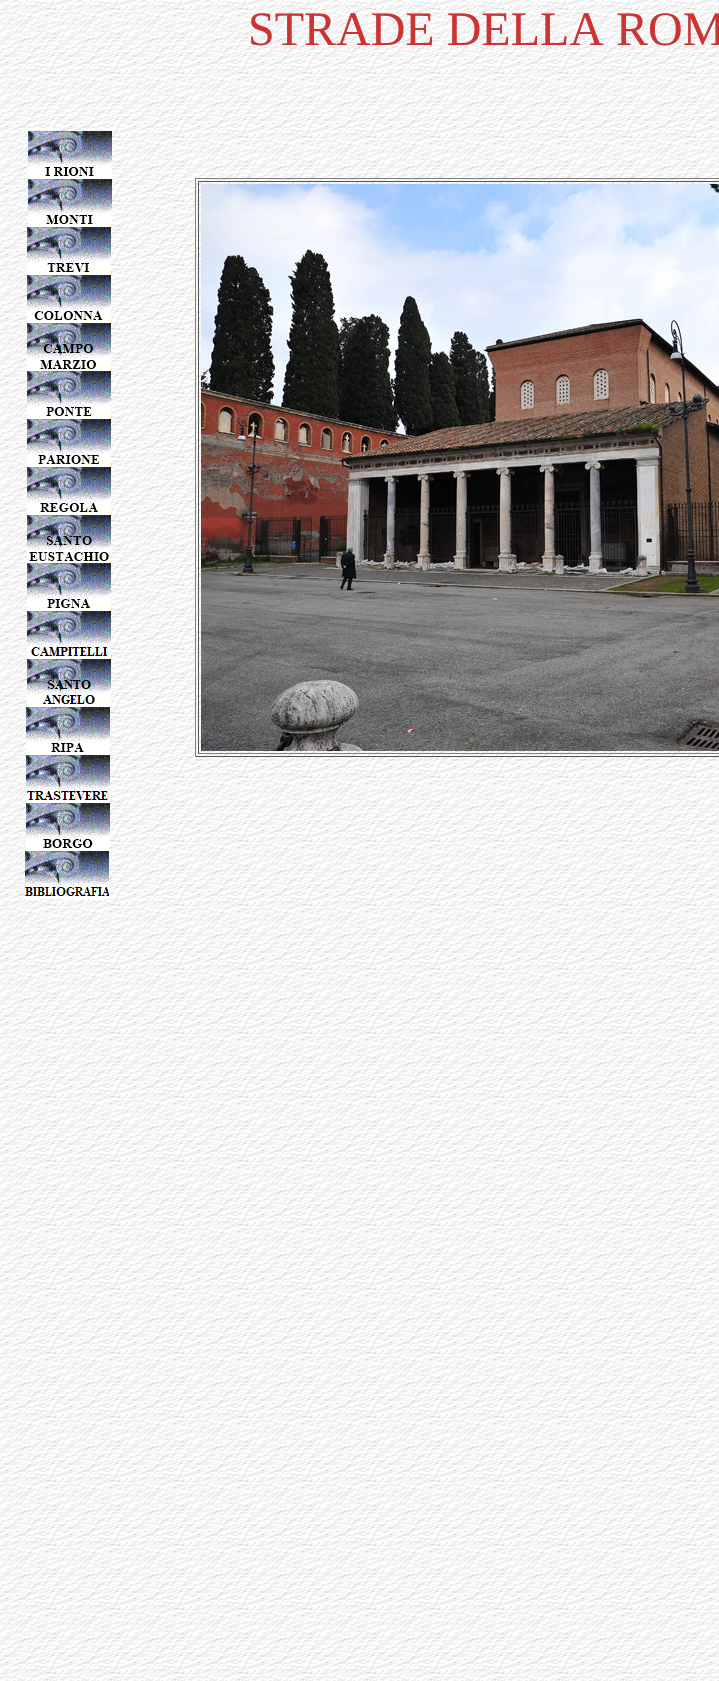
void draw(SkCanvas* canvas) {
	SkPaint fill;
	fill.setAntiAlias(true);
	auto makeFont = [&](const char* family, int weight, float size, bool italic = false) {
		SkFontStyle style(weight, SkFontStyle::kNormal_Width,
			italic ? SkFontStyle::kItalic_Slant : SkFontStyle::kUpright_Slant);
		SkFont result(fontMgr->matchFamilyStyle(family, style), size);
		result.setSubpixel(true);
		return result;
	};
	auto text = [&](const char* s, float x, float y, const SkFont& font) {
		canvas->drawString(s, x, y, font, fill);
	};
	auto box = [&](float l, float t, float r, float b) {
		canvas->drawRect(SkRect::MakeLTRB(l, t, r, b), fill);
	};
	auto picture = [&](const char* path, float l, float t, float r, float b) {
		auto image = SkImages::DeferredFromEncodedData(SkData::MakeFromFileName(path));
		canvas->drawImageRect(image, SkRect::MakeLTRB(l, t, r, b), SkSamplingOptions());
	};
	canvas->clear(0xFFFFFFFF);
	picture("image0.png", 0, 0, 719, 1681);
	fill.setColor(0xFF808080);
	box(195, 178, 719, 179);
	fill.setColor(0xFF555555);
	box(195, 756, 719, 757);
	fill.setColor(0xFF808080);
	box(195, 178, 196, 757);
	fill.setColor(0xFF555555);
	box(198, 181, 719, 182);
	fill.setColor(0xFF808080);
	box(198, 753, 719, 754);
	fill.setColor(0xFF555555);
	box(198, 181, 199, 754);
	picture("image1.png", 201, 184, 719, 751);
	picture("image2.png", 28, 131, 112, 179);
	picture("image3.png", 28, 179, 112, 227);
	picture("image4.png", 27, 227, 111, 275);
	picture("image5.png", 27, 275, 111, 323);
	picture("image6.png", 27, 323, 111, 371);
	picture("image7.png", 27, 371, 111, 419);
	picture("image8.png", 27, 419, 111, 467);
	picture("image9.png", 27, 467, 111, 515);
	picture("image10.png", 27, 515, 111, 563);
	picture("image11.png", 27, 563, 111, 611);
	picture("image12.png", 27, 611, 111, 659);
	picture("image13.png", 27, 659, 111, 707);
	picture("image14.png", 26, 707, 110, 755);
	picture("image15.png", 26, 755, 110, 803);
	picture("image16.png", 26, 803, 110, 851);
	picture("image17.png", 25, 851, 109, 899);
	auto font1 = makeFont("Liberation Serif", 400, 48);
	fill.setColor(0xFFCC3333);
	text("STRADE DELLA ROM", 248, 45, font1);
}
